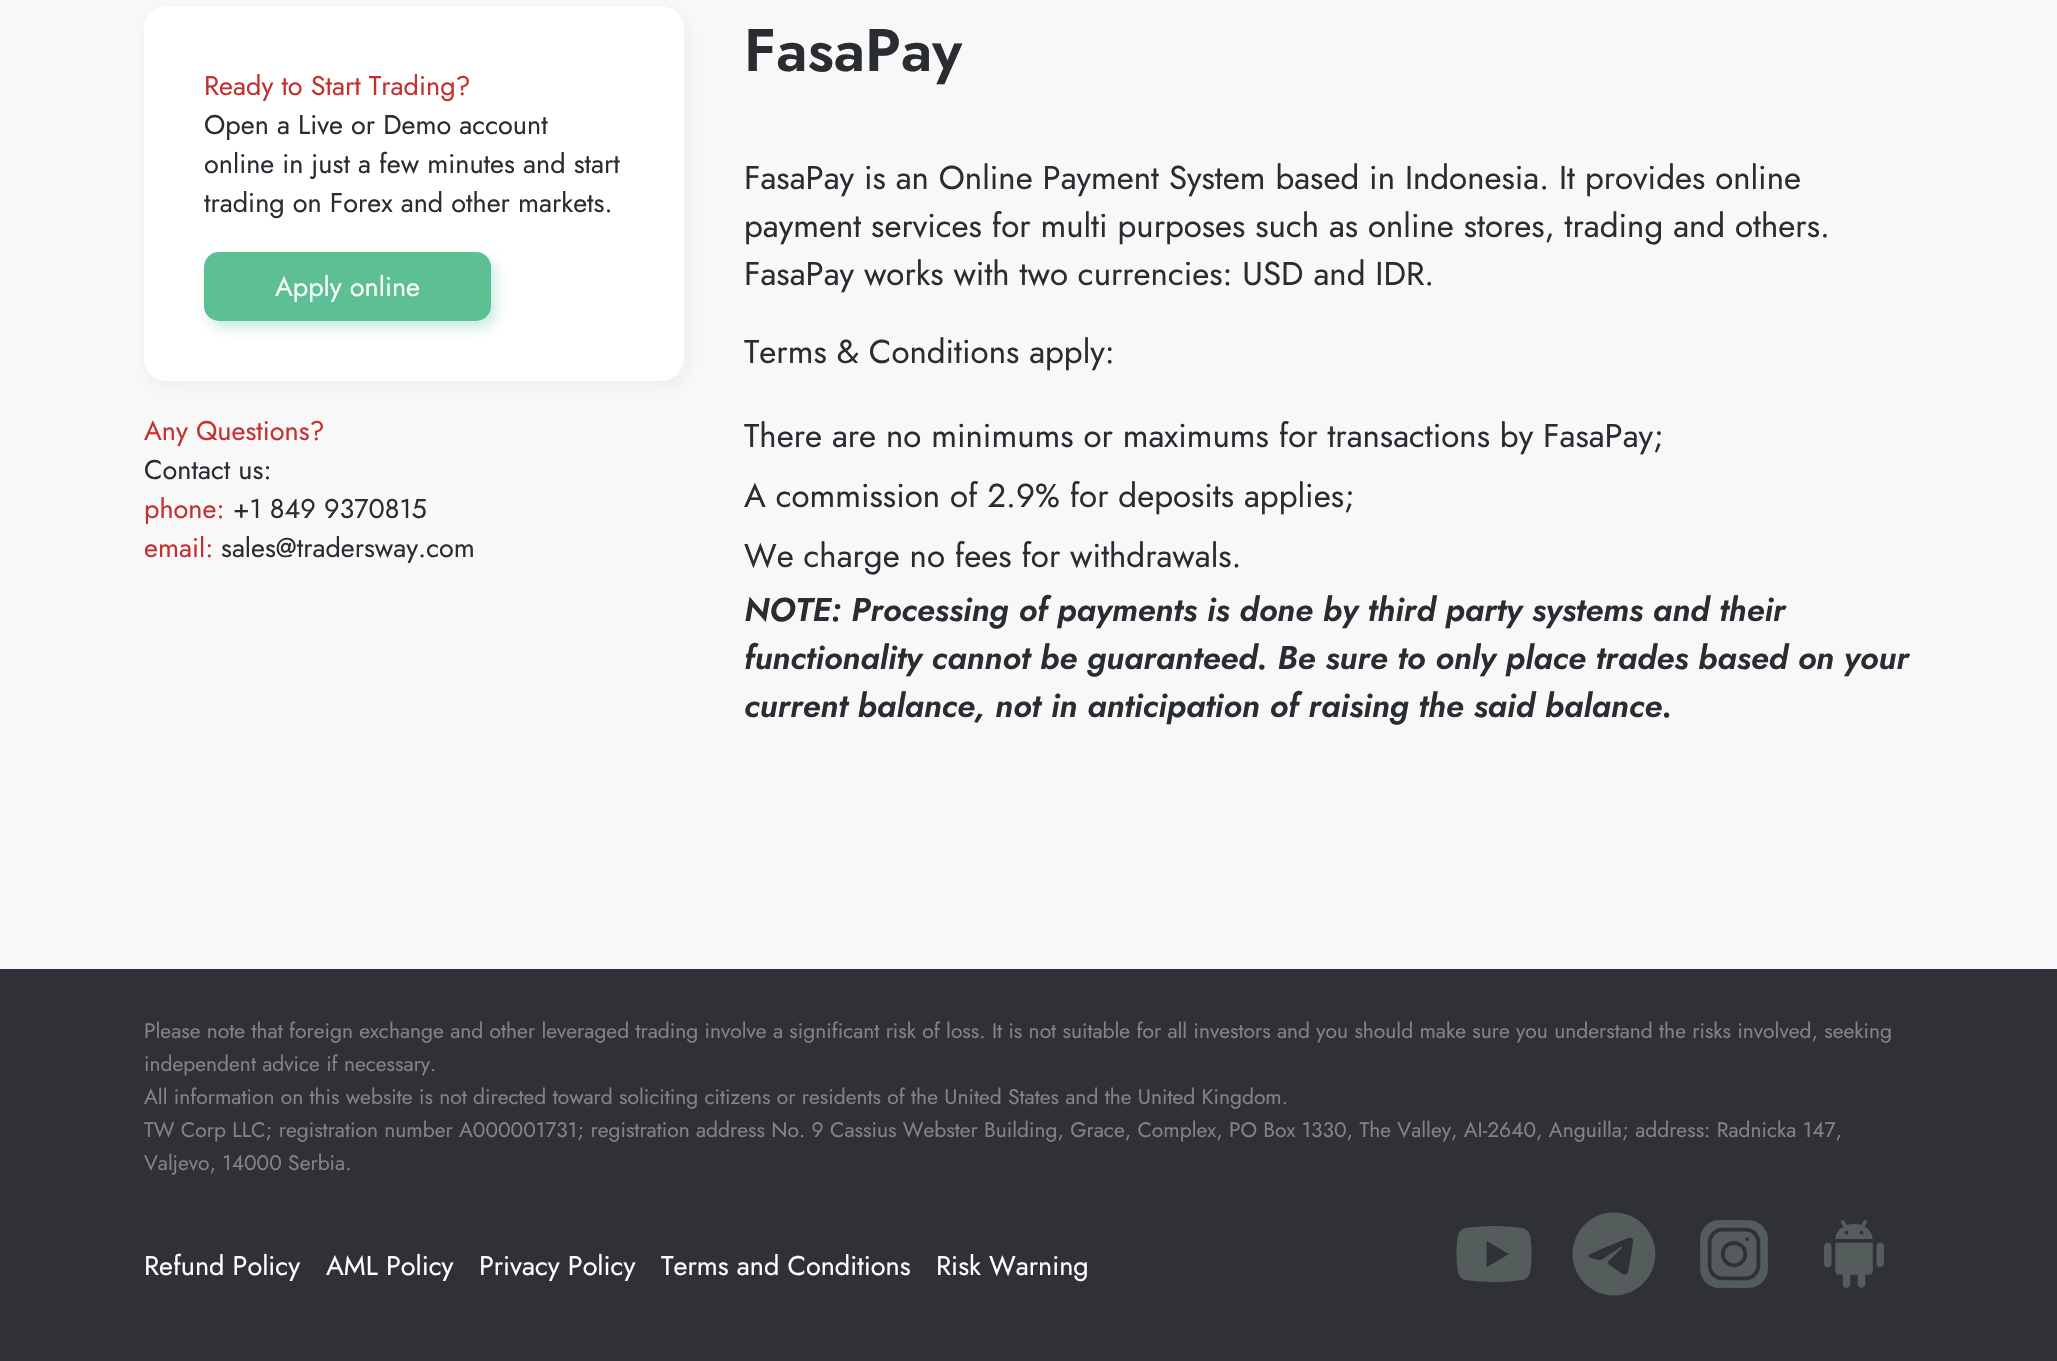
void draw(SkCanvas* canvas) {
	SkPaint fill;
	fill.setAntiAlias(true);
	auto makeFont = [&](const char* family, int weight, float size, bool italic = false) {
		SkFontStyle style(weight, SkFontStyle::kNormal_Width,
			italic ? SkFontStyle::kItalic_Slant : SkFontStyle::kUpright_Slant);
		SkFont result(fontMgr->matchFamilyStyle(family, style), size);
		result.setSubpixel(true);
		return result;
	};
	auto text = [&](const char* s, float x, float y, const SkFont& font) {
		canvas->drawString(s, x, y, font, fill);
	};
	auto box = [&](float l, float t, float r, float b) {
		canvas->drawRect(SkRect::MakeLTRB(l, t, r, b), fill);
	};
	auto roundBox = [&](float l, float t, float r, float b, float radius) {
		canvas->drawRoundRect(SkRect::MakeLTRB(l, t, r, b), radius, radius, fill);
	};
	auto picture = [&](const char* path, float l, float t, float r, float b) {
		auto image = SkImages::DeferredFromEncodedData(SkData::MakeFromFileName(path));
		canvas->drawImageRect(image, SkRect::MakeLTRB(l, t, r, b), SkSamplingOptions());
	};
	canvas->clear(0xFFF8F8F8);
	fill.setColor(0x0D292D32);
	fill.setMaskFilter(SkMaskFilter::MakeBlur(kNormal_SkBlurStyle, 9));
	canvas->drawRoundRect(SkRect::MakeLTRB(147, 12, 687, 387), 23, 23, fill);
	fill.setMaskFilter(nullptr);
	fill.setColor(0xFFFFFFFF);
	roundBox(144, 6, 684, 381, 23);
	fill.setColor(0x5C5DC095);
	fill.setMaskFilter(SkMaskFilter::MakeBlur(kNormal_SkBlurStyle, 7));
	canvas->drawRoundRect(SkRect::MakeLTRB(209, 258, 495, 327), 15, 15, fill);
	fill.setMaskFilter(nullptr);
	fill.setColor(0xFF5DC095);
	roundBox(204, 252, 491, 321, 15);
	fill.setColor(0xFF2F3137);
	box(0, 969, 2057, 1361);
	picture("image0.png", 1456, 1226, 1532, 1283);
	picture("image1.png", 1572, 1212, 1656, 1296);
	picture("image2.png", 1700, 1220, 1768, 1288);
	picture("image3.png", 1824, 1220, 1884, 1288);
	auto font1 = makeFont("Jost", 400, 27);
	fill.setColor(0xFFC52F2F);
	text("Ready to Start Trading?", 204, 95, font1);
	fill.setColor(0xFF292D32);
	text("Open a Live or Demo account", 204, 134, font1);
	text("online in just a few minutes and start", 204, 173, font1);
	text("trading on Forex and other markets.", 204, 212, font1);
	fill.setColor(0xFFFFFFFF);
	text("Apply online", 275, 296, font1);
	fill.setColor(0xFFC52F2F);
	text("Any Questions?", 144, 440, font1);
	fill.setColor(0xFF292D32);
	text("Contact us:", 144, 479, font1);
	fill.setColor(0xFFC52F2F);
	text("phone:", 144, 518, font1);
	fill.setColor(0xFF292D32);
	text("+1 849 9370815", 233, 518, font1);
	fill.setColor(0xFFC52F2F);
	text("email:", 144, 557, font1);
	fill.setColor(0xFF292D32);
	text("sales@tradersway.com", 221, 557, font1);
	auto font2 = makeFont("Jost", 600, 60);
	text("FasaPay", 744, 71, font2);
	auto font3 = makeFont("Jost", 400, 33);
	text("FasaPay is an Online Payment System based in Indonesia. It provides online", 744, 189, font3);
	text("payment services for multi purposes such as online stores, trading and others.", 744, 237, font3);
	text("FasaPay works with two currencies: USD and IDR.", 744, 285, font3);
	text("Terms & Conditions apply:", 744, 363, font3);
	text("There are no minimums or maximums for transactions by FasaPay;", 744, 447, font3);
	text("A commission of 2.9% for deposits applies;", 744, 507, font3);
	text("We charge no fees for withdrawals.", 744, 567, font3);
	auto font4 = makeFont("Jost", 600, 33, true);
	text("NOTE: Processing of payments is done by third party systems and their", 744, 621, font4);
	text("functionality cannot be guaranteed. Be sure to only place trades based on your", 744, 669, font4);
	text("current balance, not in anticipation of raising the said balance.", 744, 717, font4);
	auto font5 = makeFont("Jost", 400, 21);
	fill.setColor(0xFF828387);
	text("Please note that foreign exchange and other leveraged trading involve a significant risk of loss. It is not suitable for all investors and you should make sure you understand the risks involved, seeking", 144, 1038, font5);
	text("independent advice if necessary.", 144, 1071, font5);
	text("All information on this website is not directed toward soliciting citizens or residents of the United States and the United Kingdom.", 144, 1104, font5);
	text("TW Corp LLC; registration number A000001731; registration address No. 9 Cassius Webster Building, Grace, Complex, PO Box 1330, The Valley, AI-2640, Anguilla; address: Radnicka 147,", 144, 1137, font5);
	text("Valjevo, 14000 Serbia.", 144, 1170, font5);
	fill.setColor(0xFFFFFFFF);
	text("Refund Policy", 144, 1275, font1);
	text("AML Policy", 326, 1275, font1);
	text("Privacy Policy", 479, 1275, font1);
	text("Terms and Conditions", 661, 1275, font1);
	text("Risk Warning", 936, 1275, font1);
}
